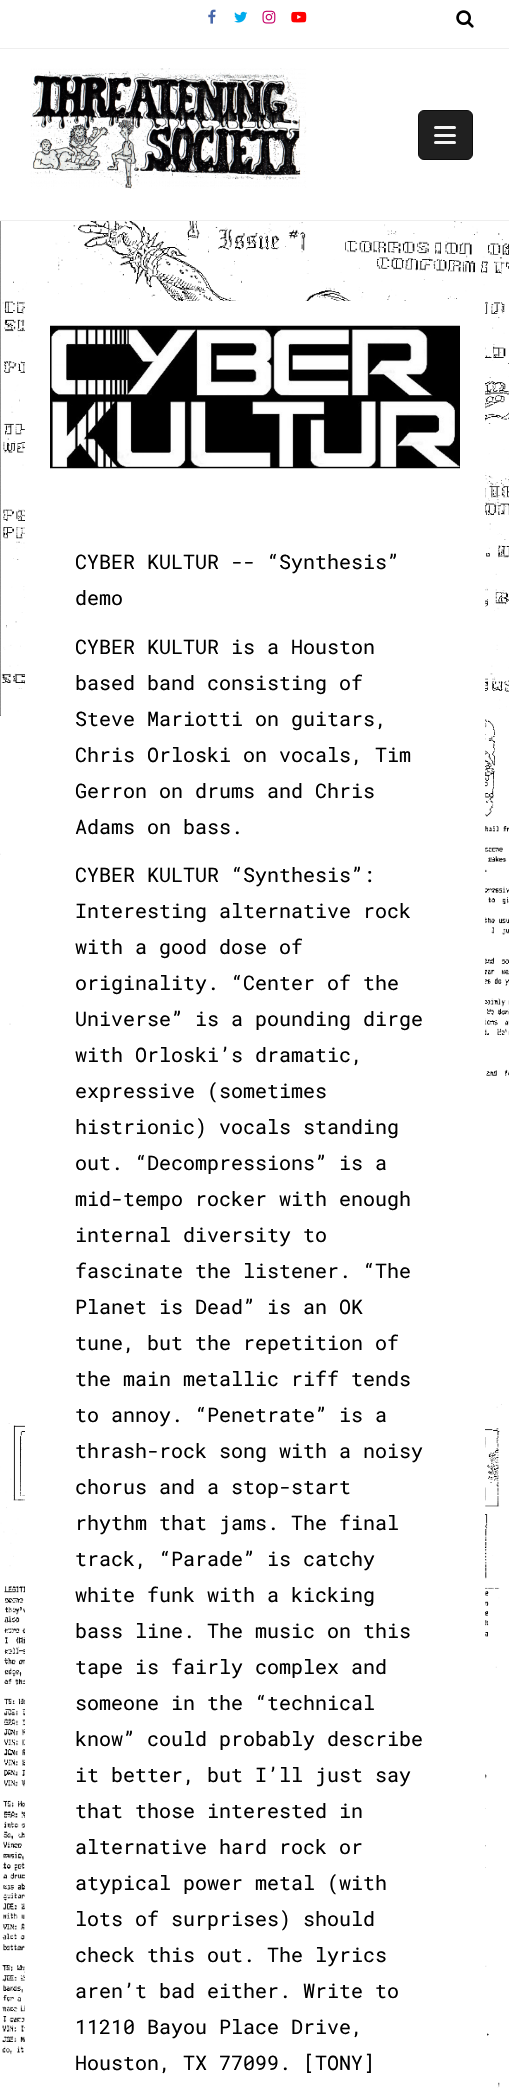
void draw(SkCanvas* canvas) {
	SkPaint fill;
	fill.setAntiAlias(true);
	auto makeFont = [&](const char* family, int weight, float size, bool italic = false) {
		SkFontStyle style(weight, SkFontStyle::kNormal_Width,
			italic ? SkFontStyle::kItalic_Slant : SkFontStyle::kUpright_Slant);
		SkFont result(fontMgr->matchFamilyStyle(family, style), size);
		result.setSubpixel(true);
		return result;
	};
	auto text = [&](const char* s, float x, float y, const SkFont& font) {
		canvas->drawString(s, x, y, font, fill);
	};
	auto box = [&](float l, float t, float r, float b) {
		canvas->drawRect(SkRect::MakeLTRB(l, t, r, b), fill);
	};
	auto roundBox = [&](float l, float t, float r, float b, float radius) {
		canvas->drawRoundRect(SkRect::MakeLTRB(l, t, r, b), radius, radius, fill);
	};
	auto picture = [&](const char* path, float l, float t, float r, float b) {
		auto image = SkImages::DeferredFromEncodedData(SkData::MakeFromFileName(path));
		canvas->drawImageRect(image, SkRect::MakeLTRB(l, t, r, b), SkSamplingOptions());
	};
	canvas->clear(0xFFFFFFFF);
	picture("image0.png", 0, 221, 509, 2097);
	fill.setColor(0xFFEEEEEE);
	box(0, 48, 509, 49);
	picture("image1.png", 208, 9, 216, 24);
	picture("image2.png", 234, 11, 248, 23);
	picture("image3.png", 262, 10, 276, 24);
	picture("image4.png", 291, 11, 307, 23);
	picture("image5.png", 456, 10, 474, 28);
	box(0, 220, 509, 221);
	picture("image6.png", 30, 68, 307, 189);
	fill.setColor(0xFF202020);
	canvas->drawRoundRect(SkRect::MakeLTRB(418.5f, 110.5f, 472.5f, 159.5f), 5.5f, 5.5f, fill);
	fill.setStyle(SkPaint::kStroke_Style);
	fill.setStrokeWidth(1);
	fill.setColor(0xFF0C0C0C);
	canvas->drawRoundRect(SkRect::MakeLTRB(418.5f, 110.5f, 472.5f, 159.5f), 5.5f, 5.5f, fill);
	fill.setStyle(SkPaint::kFill_Style);
	fill.setColor(0xFFF5F5F5);
	roundBox(434, 126, 456, 129, 1.5f);
	roundBox(434, 134, 456, 137, 1.5f);
	roundBox(434, 141, 456, 144, 1.5f);
	fill.setColor(0xFFFFFFFF);
	box(25, 301, 485, 2092);
	picture("image7.png", 50, 325, 460, 469);
	auto font1 = makeFont("Roboto Mono", 400, 20);
	fill.setColor(0xFF000000);
	text("CYBER KULTUR -- “Synthesis”", 75, 569, font1);
	text("demo", 75, 605, font1);
	text("CYBER KULTUR is a Houston", 75, 654, font1);
	text("based band consisting of", 75, 690, font1);
	text("Steve Mariotti on guitars,", 75, 726, font1);
	text("Chris Orloski on vocals, Tim", 75, 762, font1);
	text("Gerron on drums and Chris", 75, 798, font1);
	text("Adams on bass.", 75, 834, font1);
	text("CYBER KULTUR “Synthesis”:", 75, 882, font1);
	text("Interesting alternative rock", 75, 918, font1);
	text("with a good dose of", 75, 954, font1);
	text("originality. “Center of the", 75, 990, font1);
	text("Universe” is a pounding dirge", 75, 1026, font1);
	text("with Orloski’s dramatic,", 75, 1062, font1);
	text("expressive (sometimes", 75, 1098, font1);
	text("histrionic) vocals standing", 75, 1134, font1);
	text("out. “Decompressions” is a", 75, 1170, font1);
	text("mid-tempo rocker with enough", 75, 1206, font1);
	text("internal diversity to", 75, 1242, font1);
	text("fascinate the listener. “The", 75, 1278, font1);
	text("Planet is Dead” is an OK", 75, 1314, font1);
	text("tune, but the repetition of", 75, 1350, font1);
	text("the main metallic riff tends", 75, 1386, font1);
	text("to annoy. “Penetrate” is a", 75, 1422, font1);
	text("thrash-rock song with a noisy", 75, 1458, font1);
	text("chorus and a stop-start", 75, 1494, font1);
	text("rhythm that jams. The final", 75, 1530, font1);
	text("track, “Parade” is catchy", 75, 1566, font1);
	text("white funk with a kicking", 75, 1602, font1);
	text("bass line. The music on this", 75, 1638, font1);
	text("tape is fairly complex and", 75, 1674, font1);
	text("someone in the “technical", 75, 1710, font1);
	text("know” could probably describe", 75, 1746, font1);
	text("it better, but I’ll just say", 75, 1782, font1);
	text("that those interested in", 75, 1818, font1);
	text("alternative hard rock or", 75, 1854, font1);
	text("atypical power metal (with", 75, 1890, font1);
	text("lots of surprises) should", 75, 1926, font1);
	text("check this out. The lyrics", 75, 1962, font1);
	text("aren’t bad either. Write to", 75, 1998, font1);
	text("11210 Bayou Place Drive,", 75, 2034, font1);
	text("Houston, TX 77099. [TONY]", 75, 2070, font1);
}
